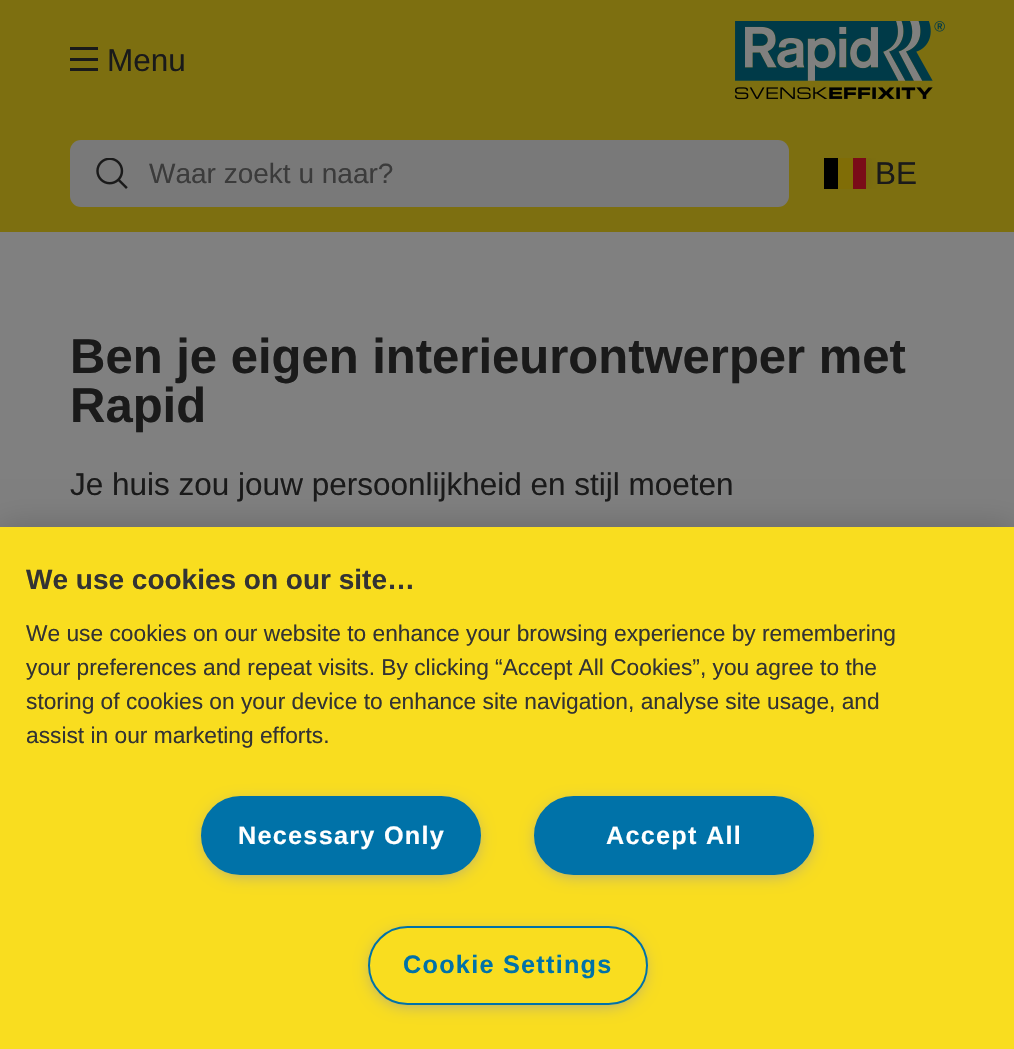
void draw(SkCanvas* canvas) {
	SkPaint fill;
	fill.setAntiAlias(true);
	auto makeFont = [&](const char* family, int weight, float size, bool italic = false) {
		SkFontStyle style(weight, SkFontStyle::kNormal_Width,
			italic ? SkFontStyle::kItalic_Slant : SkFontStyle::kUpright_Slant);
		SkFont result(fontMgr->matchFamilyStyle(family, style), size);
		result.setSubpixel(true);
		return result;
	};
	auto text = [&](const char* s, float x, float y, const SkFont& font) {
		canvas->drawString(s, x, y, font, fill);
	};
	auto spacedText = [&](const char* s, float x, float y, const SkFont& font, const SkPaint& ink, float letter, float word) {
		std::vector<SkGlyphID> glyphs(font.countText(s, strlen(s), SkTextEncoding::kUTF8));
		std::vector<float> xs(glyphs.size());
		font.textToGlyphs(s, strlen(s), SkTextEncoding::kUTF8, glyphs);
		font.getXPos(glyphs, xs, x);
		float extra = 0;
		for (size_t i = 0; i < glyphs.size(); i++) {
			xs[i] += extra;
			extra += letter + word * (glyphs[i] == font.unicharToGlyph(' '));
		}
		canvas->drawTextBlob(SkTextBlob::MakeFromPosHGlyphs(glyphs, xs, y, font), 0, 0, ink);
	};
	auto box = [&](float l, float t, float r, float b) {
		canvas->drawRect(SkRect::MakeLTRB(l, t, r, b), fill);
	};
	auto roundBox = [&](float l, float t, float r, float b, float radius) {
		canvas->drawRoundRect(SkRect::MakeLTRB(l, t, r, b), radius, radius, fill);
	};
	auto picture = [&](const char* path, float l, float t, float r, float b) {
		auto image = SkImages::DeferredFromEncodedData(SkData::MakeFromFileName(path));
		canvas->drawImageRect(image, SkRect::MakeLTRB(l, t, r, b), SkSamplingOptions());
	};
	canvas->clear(0xFF808080);
	fill.setColor(0xFF7D6F10);
	box(0, 0, 1014, 232);
	fill.setColor(0xFF1A1A1A);
	box(70, 58, 98, 61);
	box(70, 47, 98, 50);
	box(70, 68, 98, 71);
	picture("image0.png", 735, 21, 945, 100);
	fill.setColor(0xFF797979);
	roundBox(70, 140, 789, 207, 11);
	picture("image1.png", 96, 158, 128, 189);
	canvas->save();
	canvas->clipRect(SkRect::MakeLTRB(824, 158, 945, 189));
	fill.setColor(0x1A000000);
	fill.setMaskFilter(SkMaskFilter::MakeBlur(kNormal_SkBlurStyle, 7));
	canvas->drawRect(SkRect::MakeLTRB(824, 158, 866, 189), fill);
	fill.setMaskFilter(nullptr);
	canvas->restore();
	fill.setColor(0xFF000000);
	box(824, 158, 838, 189);
	fill.setColor(0xFF806D06);
	box(838, 158, 853, 189);
	fill.setColor(0xFF7A0C18);
	box(853, 158, 866, 189);
	fill.setColor(0x33000000);
	fill.setMaskFilter(SkMaskFilter::MakeBlur(kNormal_SkBlurStyle, 16));
	canvas->drawRect(SkRect::MakeLTRB(0, 527, 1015, 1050), fill);
	fill.setMaskFilter(nullptr);
	fill.setColor(0xFFF9DD1F);
	box(0, 527, 1014, 1049);
	fill.setColor(0xFF999999);
	fill.setMaskFilter(SkMaskFilter::MakeBlur(kNormal_SkBlurStyle, 9));
	canvas->drawRoundRect(SkRect::MakeLTRB(207, 805, 476, 873), 34, 34, fill);
	fill.setMaskFilter(nullptr);
	fill.setColor(0xFF0072A8);
	canvas->drawRoundRect(SkRect::MakeLTRB(202, 797, 480, 874), 38.5f, 38.5f, fill);
	fill.setStyle(SkPaint::kStroke_Style);
	fill.setStrokeWidth(2);
	canvas->drawRoundRect(SkRect::MakeLTRB(202, 797, 480, 874), 38.5f, 38.5f, fill);
	fill.setStyle(SkPaint::kFill_Style);
	fill.setColor(0xFF999999);
	fill.setMaskFilter(SkMaskFilter::MakeBlur(kNormal_SkBlurStyle, 9));
	canvas->drawRoundRect(SkRect::MakeLTRB(539, 805, 809, 873), 34, 34, fill);
	fill.setMaskFilter(nullptr);
	fill.setColor(0xFF0072A8);
	canvas->drawRoundRect(SkRect::MakeLTRB(535, 797, 813, 874), 38.5f, 38.5f, fill);
	fill.setStyle(SkPaint::kStroke_Style);
	canvas->drawRoundRect(SkRect::MakeLTRB(535, 797, 813, 874), 38.5f, 38.5f, fill);
	fill.setStyle(SkPaint::kFill_Style);
	fill.setColor(0xFF999999);
	fill.setMaskFilter(SkMaskFilter::MakeBlur(kNormal_SkBlurStyle, 9));
	canvas->drawRoundRect(SkRect::MakeLTRB(373, 935, 642, 1003), 34, 34, fill);
	fill.setMaskFilter(nullptr);
	fill.setColor(0xFFF9DD1F);
	canvas->drawRoundRect(SkRect::MakeLTRB(369, 927, 647, 1004), 38.5f, 38.5f, fill);
	fill.setStyle(SkPaint::kStroke_Style);
	fill.setColor(0xFF0072A8);
	canvas->drawRoundRect(SkRect::MakeLTRB(369, 927, 647, 1004), 38.5f, 38.5f, fill);
	auto font1 = makeFont("Liberation Sans", 400, 31.5f);
	fill.setStyle(SkPaint::kFill_Style);
	fill.setColor(0xFF1A1A1A);
	text("Menu", 107, 71, font1);
	auto font2 = makeFont("Liberation Sans", 400, 28);
	fill.setColor(0xFF3B3B3B);
	text("Waar zoekt u naar?", 149, 183, font2);
	fill.setColor(0xFF1A1A1A);
	text("BE", 875, 184, font1);
	auto font3 = makeFont("Liberation Sans", 700, 49);
	text("Ben je eigen interieurontwerper met", 70, 373, font3);
	text("Rapid", 70, 422, font3);
	text("Je huis zou jouw persoonlijkheid en stijl moeten", 70, 495, font1);
	auto font4 = makeFont("Liberation Sans", 700, 28);
	fill.setColor(0xFF333333);
	text("We use cookies on our site…", 26, 589, font4);
	auto font5 = makeFont("Liberation Sans", 400, 22.75f);
	text("We use cookies on our website to enhance your browsing experience by remembering", 26, 641, font5);
	text("your preferences and repeat visits. By clicking “Accept All Cookies”, you agree to the", 26, 675, font5);
	text("storing of cookies on your device to enhance site navigation, analyse site usage, and", 26, 709, font5);
	text("assist in our marketing efforts.", 26, 743, font5);
	auto font6 = makeFont("Liberation Sans", 700, 25.25f);
	fill.setColor(0xFFFFFFFF);
	spacedText("Necessary Only", 238, 844, font6, fill, 1.25f, 0);
	spacedText("Accept All", 606, 844, font6, fill, 1.25f, 0);
	fill.setColor(0xFF0072A8);
	spacedText("Cookie Settings", 403, 973, font6, fill, 1.25f, 0);
}
